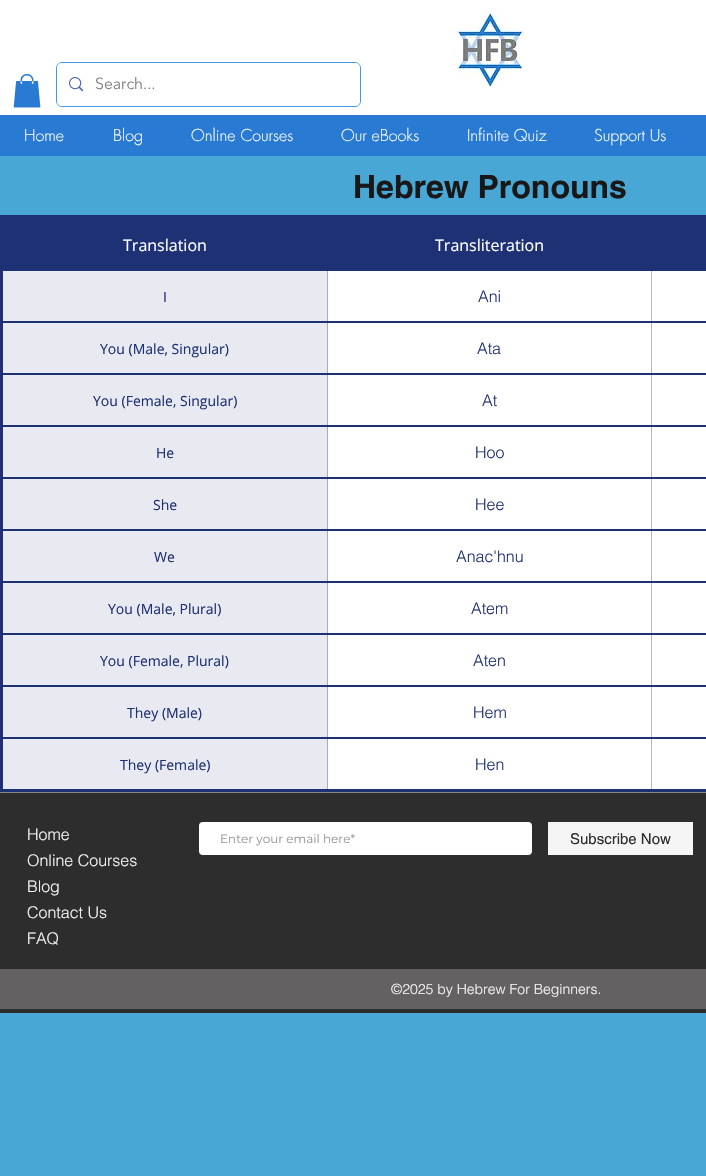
void draw(SkCanvas* canvas) {
	SkPaint fill;
	fill.setAntiAlias(true);
	auto makeFont = [&](const char* family, int weight, float size, bool italic = false) {
		SkFontStyle style(weight, SkFontStyle::kNormal_Width,
			italic ? SkFontStyle::kItalic_Slant : SkFontStyle::kUpright_Slant);
		SkFont result(fontMgr->matchFamilyStyle(family, style), size);
		result.setSubpixel(true);
		return result;
	};
	auto text = [&](const char* s, float x, float y, const SkFont& font) {
		canvas->drawString(s, x, y, font, fill);
	};
	auto box = [&](float l, float t, float r, float b) {
		canvas->drawRect(SkRect::MakeLTRB(l, t, r, b), fill);
	};
	auto roundBox = [&](float l, float t, float r, float b, float radius) {
		canvas->drawRoundRect(SkRect::MakeLTRB(l, t, r, b), radius, radius, fill);
	};
	auto picture = [&](const char* path, float l, float t, float r, float b) {
		auto image = SkImages::DeferredFromEncodedData(SkData::MakeFromFileName(path));
		canvas->drawImageRect(image, SkRect::MakeLTRB(l, t, r, b), SkSamplingOptions());
	};
	canvas->clear(0xFF48A7D5);
	fill.setColor(0xFFFFFFFF);
	box(0, 0, 706, 115);
	picture("image0.png", 13, 74, 41, 108);
	fill.setStyle(SkPaint::kStroke_Style);
	fill.setStrokeWidth(1);
	fill.setColor(0xFF3D9BE9);
	canvas->drawRoundRect(SkRect::MakeLTRB(56.5f, 62.5f, 360.5f, 106.5f), 5.5f, 5.5f, fill);
	fill.setStyle(SkPaint::kFill_Style);
	fill.setColor(0xFFFFFFFF);
	roundBox(57, 63, 360, 106, 5);
	picture("image1.png", 69, 77, 83, 92);
	picture("image2.png", 452, 12, 524, 88);
	fill.setColor(0xFF297AD3);
	box(0, 115, 706, 156);
	fill.setColor(0xFFFFFFFF);
	box(328, 271, 706, 789);
	fill.setStyle(SkPaint::kStroke_Style);
	fill.setStrokeWidth(3);
	fill.setColor(0xFF1E3175);
	canvas->drawRect(SkRect::MakeLTRB(1.5f, 216.5f, 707.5f, 790.5f), fill);
	fill.setStyle(SkPaint::kFill_Style);
	box(3, 218, 706, 271);
	box(3, 321, 706, 323);
	fill.setColor(0xFFE9EAF1);
	box(3, 271, 327, 321);
	fill.setColor(0xFFA4ABC7);
	box(327, 271, 328, 321);
	fill.setColor(0xFFB3B9D0);
	box(651, 271, 652, 321);
	fill.setColor(0xFF1E3175);
	box(3, 373, 706, 375);
	fill.setColor(0xFFE9EAF1);
	box(3, 323, 327, 373);
	fill.setColor(0xFFA4ABC7);
	box(327, 323, 328, 373);
	fill.setColor(0xFFB3B9D0);
	box(651, 323, 652, 373);
	fill.setColor(0xFF1E3175);
	box(3, 425, 706, 427);
	fill.setColor(0xFFE9EAF1);
	box(3, 375, 327, 425);
	fill.setColor(0xFFA4ABC7);
	box(327, 375, 328, 425);
	fill.setColor(0xFFB3B9D0);
	box(651, 375, 652, 425);
	fill.setColor(0xFF1E3175);
	box(3, 477, 706, 479);
	fill.setColor(0xFFE9EAF1);
	box(3, 427, 327, 477);
	fill.setColor(0xFFA4ABC7);
	box(327, 427, 328, 477);
	fill.setColor(0xFFB3B9D0);
	box(651, 427, 652, 477);
	fill.setColor(0xFF1E3175);
	box(3, 529, 706, 531);
	fill.setColor(0xFFE9EAF1);
	box(3, 479, 327, 529);
	fill.setColor(0xFFA4ABC7);
	box(327, 479, 328, 529);
	fill.setColor(0xFFB3B9D0);
	box(651, 479, 652, 529);
	fill.setColor(0xFF1E3175);
	box(3, 581, 706, 583);
	fill.setColor(0xFFE9EAF1);
	box(3, 531, 327, 581);
	fill.setColor(0xFFA4ABC7);
	box(327, 531, 328, 581);
	fill.setColor(0xFFB3B9D0);
	box(651, 531, 652, 581);
	fill.setColor(0xFF1E3175);
	box(3, 633, 706, 635);
	fill.setColor(0xFFE9EAF1);
	box(3, 583, 327, 633);
	fill.setColor(0xFFA4ABC7);
	box(327, 583, 328, 633);
	fill.setColor(0xFFB3B9D0);
	box(651, 583, 652, 633);
	fill.setColor(0xFF1E3175);
	box(3, 685, 706, 687);
	fill.setColor(0xFFE9EAF1);
	box(3, 635, 327, 685);
	fill.setColor(0xFFA4ABC7);
	box(327, 635, 328, 685);
	fill.setColor(0xFFB3B9D0);
	box(651, 635, 652, 685);
	fill.setColor(0xFF1E3175);
	box(3, 737, 706, 739);
	fill.setColor(0xFFE9EAF1);
	box(3, 687, 327, 737);
	fill.setColor(0xFFA4ABC7);
	box(327, 687, 328, 737);
	fill.setColor(0xFFB3B9D0);
	box(651, 687, 652, 737);
	fill.setColor(0xFFE9EAF1);
	box(3, 739, 327, 789);
	fill.setColor(0xFFA4ABC7);
	box(327, 739, 328, 789);
	fill.setColor(0xFFB3B9D0);
	box(651, 739, 652, 789);
	fill.setColor(0xFF2D2D2D);
	box(0, 793, 706, 1013);
	fill.setColor(0xFF878787);
	box(0, 792, 706, 793);
	fill.setColor(0xFFFFFFFF);
	roundBox(199, 822, 532, 855, 4);
	fill.setColor(0xFFF5F5F5);
	box(548, 822, 693, 855);
	fill.setColor(0xFF636161);
	box(0, 969, 706, 1009);
	auto font1 = makeFont("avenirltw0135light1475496", 300, 16);
	fill.setColor(0xFF787878);
	text("Search...", 95, 89, font1);
	auto font2 = makeFont("futura", 300, 16);
	fill.setColor(0xFFFFFFFF);
	text("Home", 24, 141, font2);
	text("Blog", 113, 141, font2);
	text("Online Courses", 191, 141, font2);
	text("Our eBooks", 341, 141, font2);
	text("Infinite Quiz", 467, 141, font2);
	text("Support Us", 594, 141, font2);
	auto font3 = makeFont("helvetica", 700, 32);
	fill.setColor(0xFF181818);
	text("Hebrew Pronouns", 353, 198, font3);
	auto font4 = makeFont("Open Sans", 400, 16);
	fill.setColor(0xFFFFFFFF);
	text("Translation", 123, 251, font4);
	text("Transliteration", 435, 251, font4);
	auto font5 = makeFont("Open Sans", 400, 14);
	fill.setColor(0xFF1E3175);
	text("I", 163, 302, font5);
	auto font6 = makeFont("helvetica", 300, 16);
	text("Ani", 478, 302, font6);
	text("You (Male, Singular)", 100, 354, font5);
	text("Ata", 477, 354, font6);
	text("You (Female, Singular)", 93, 406, font5);
	text("At", 482, 406, font6);
	text("He", 156, 458, font5);
	text("Hoo", 475, 458, font6);
	text("She", 153, 510, font5);
	text("Hee", 475, 510, font6);
	text("We", 154, 562, font5);
	text("Anac'hnu", 456, 562, font6);
	text("You (Male, Plural)", 108, 614, font5);
	text("Atem", 471, 614, font6);
	text("You (Female, Plural)", 100, 666, font5);
	text("Aten", 473, 666, font6);
	text("They (Male)", 127, 718, font5);
	text("Hem", 473, 718, font6);
	text("They (Female)", 120, 770, font5);
	text("Hen", 475, 770, font6);
	fill.setColor(0xFFF5F5F5);
	text("Home", 27, 840, font6);
	text("Online Courses", 27, 866, font6);
	text("Blog", 27, 892, font6);
	text("Contact Us", 27, 918, font6);
	text("FAQ", 27, 944, font6);
	auto font7 = makeFont("Montserrat", 400, 12);
	fill.setColor(0xFF999999);
	text("Enter your email here*", 220, 843, font7);
	auto font8 = makeFont("helvetica", 400, 15);
	fill.setColor(0xFF2D2D2D);
	text("Subscribe Now", 570, 844, font8);
	auto font9 = makeFont("helvetica", 300, 14);
	fill.setColor(0xFFF5F5F5);
	text("©2025 by Hebrew For Beginners.", 391, 994, font9);
}
